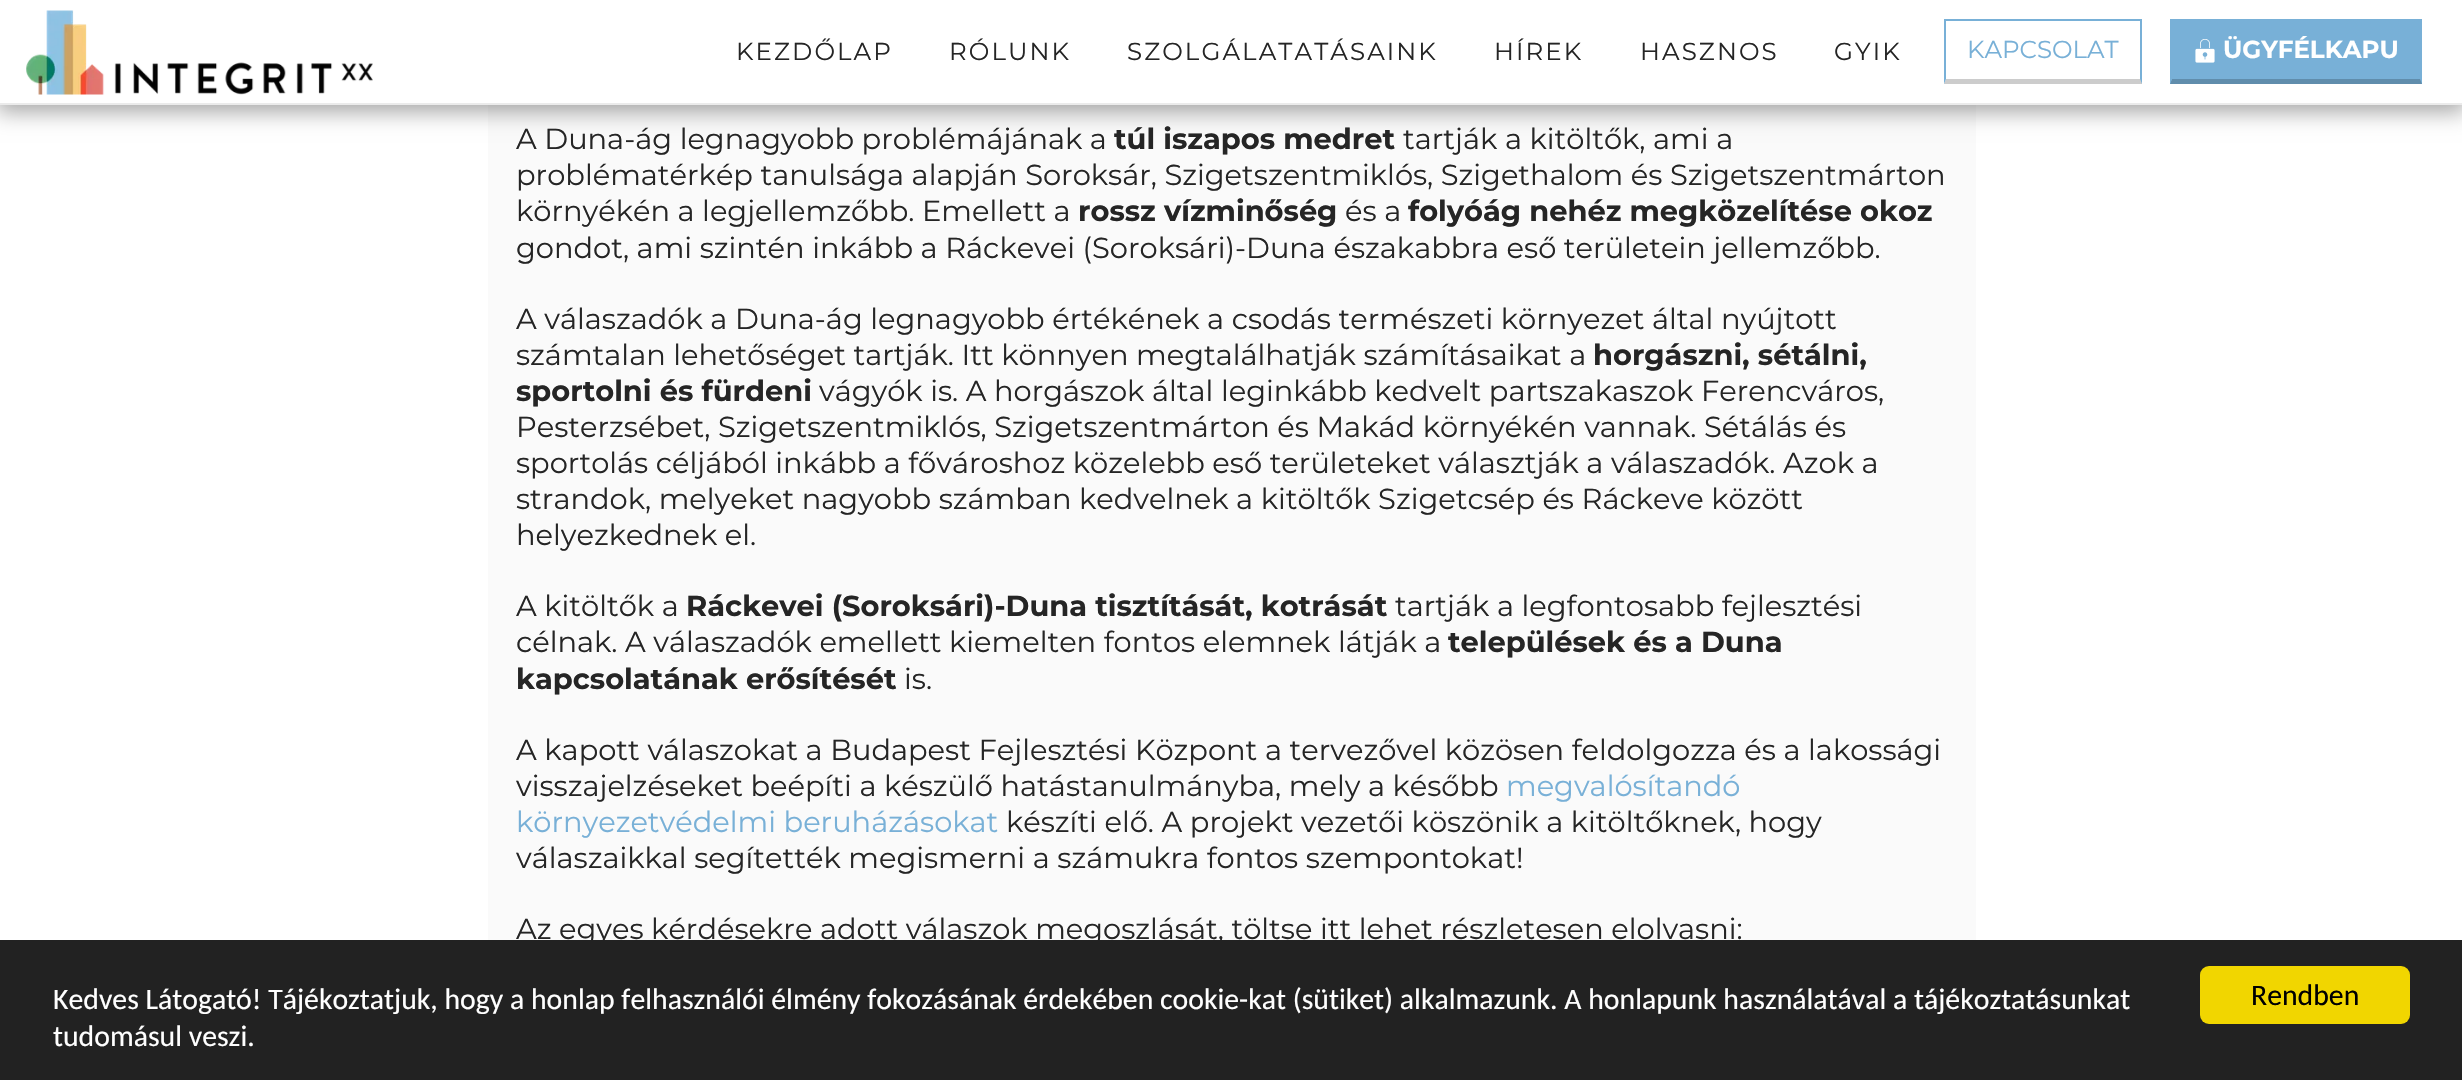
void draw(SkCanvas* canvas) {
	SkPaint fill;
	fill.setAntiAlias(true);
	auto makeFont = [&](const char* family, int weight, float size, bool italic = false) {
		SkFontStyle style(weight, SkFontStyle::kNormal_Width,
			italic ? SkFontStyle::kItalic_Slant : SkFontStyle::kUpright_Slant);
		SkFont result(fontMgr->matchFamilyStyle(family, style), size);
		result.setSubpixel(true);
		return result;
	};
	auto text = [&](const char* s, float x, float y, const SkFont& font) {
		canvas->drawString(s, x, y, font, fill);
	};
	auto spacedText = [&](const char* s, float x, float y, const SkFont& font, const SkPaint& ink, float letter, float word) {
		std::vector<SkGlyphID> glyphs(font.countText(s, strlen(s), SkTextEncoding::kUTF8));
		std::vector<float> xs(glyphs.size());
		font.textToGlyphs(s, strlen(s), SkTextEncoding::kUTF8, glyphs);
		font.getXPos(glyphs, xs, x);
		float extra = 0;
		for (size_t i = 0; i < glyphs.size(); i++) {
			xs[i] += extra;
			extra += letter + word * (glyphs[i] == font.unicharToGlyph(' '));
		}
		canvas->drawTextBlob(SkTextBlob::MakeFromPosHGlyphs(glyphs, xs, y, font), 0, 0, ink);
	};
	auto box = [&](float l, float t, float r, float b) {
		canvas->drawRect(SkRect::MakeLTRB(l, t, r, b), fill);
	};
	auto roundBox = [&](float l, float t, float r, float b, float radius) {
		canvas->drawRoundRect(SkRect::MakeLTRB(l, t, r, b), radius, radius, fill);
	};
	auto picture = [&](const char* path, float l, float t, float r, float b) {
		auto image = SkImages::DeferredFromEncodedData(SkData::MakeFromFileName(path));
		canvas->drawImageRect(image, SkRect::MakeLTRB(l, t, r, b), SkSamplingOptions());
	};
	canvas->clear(0xFFFFFFFF);
	fill.setColor(0xFFFAFAFA);
	box(488, 105, 1976, 940);
	fill.setColor(0x59000000);
	fill.setMaskFilter(SkMaskFilter::MakeBlur(kNormal_SkBlurStyle, 10.5f));
	canvas->drawRect(SkRect::MakeLTRB(-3, 0, 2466, 112), fill);
	fill.setMaskFilter(nullptr);
	fill.setColor(0xFFFFFFFF);
	box(0, 0, 2462, 103);
	fill.setColor(0xFFEBEBEB);
	box(0, 103, 2462, 105);
	picture("image0.png", 26, 10, 373, 95);
	fill.setColor(0xFF78B0D7);
	box(1944, 19, 2142, 21);
	canvas->drawPath(SkPathBuilder().moveTo(2142, 19).lineTo(2142, 84).lineTo(2140, 79).lineTo(2140, 21).close().detach(), fill);
	fill.setColor(0x33000000);
	canvas->drawPath(SkPathBuilder().moveTo(2142, 84).lineTo(1944, 84).lineTo(1946, 79).lineTo(2140, 79).close().detach(), fill);
	fill.setColor(0xFF78B0D7);
	canvas->drawPath(SkPathBuilder().moveTo(1944, 84).lineTo(1944, 19).lineTo(1946, 21).lineTo(1946, 79).close().detach(), fill);
	box(2170, 19, 2422, 84);
	fill.setColor(0xFF608DAC);
	canvas->drawPath(SkPathBuilder().moveTo(2422, 84).lineTo(2170, 84).lineTo(2172, 79).lineTo(2420, 79).close().detach(), fill);
	fill.setColor(0xFF78B0D7);
	canvas->drawPath(SkPathBuilder().moveTo(2170, 84).lineTo(2170, 19).lineTo(2172, 21).lineTo(2172, 79).close().detach(), fill);
	picture("image1.png", 2195, 39, 2215, 63);
	auto font1 = makeFont("Montserrat", 400, 24.5f);
	fill.setColor(0xFF252525);
	spacedText("KEZDŐLAP", 736, 60, font1, fill, 2.1f, 0);
	spacedText("RÓLUNK", 949, 60, font1, fill, 2.1f, 0);
	spacedText("SZOLGÁLATATÁSAINK", 1127, 60, font1, fill, 2.1f, 0);
	spacedText("HÍREK", 1494, 60, font1, fill, 2.1f, 0);
	spacedText("HASZNOS", 1640, 60, font1, fill, 2.1f, 0);
	spacedText("GYIK", 1834, 60, font1, fill, 2.1f, 0);
	fill.setColor(0xFF78B0D7);
	text("KAPCSOLAT", 1967, 58, font1);
	auto font2 = makeFont("Montserrat", 700, 24.5f);
	fill.setColor(0xFFFFFFFF);
	text("ÜGYFÉLKAPU", 2223, 58, font2);
	auto font3 = makeFont("Montserrat", 400, 28.9f);
	fill.setColor(0xFF252525);
	text("A Duna-ág legnagyobb problémájának a", 516, 149, font3);
	auto font4 = makeFont("Montserrat", 700, 28.9f);
	text("túl iszapos medret", 1114, 149, font4);
	text("tartják a kitöltők, ami a", 1403, 149, font3);
	text("problématérkép tanulsága alapján Soroksár, Szigetszentmiklós, Szigethalom és Szigetszentmárton", 516, 185, font3);
	text("környékén a legjellemzőbb. Emellett a", 516, 221, font3);
	text("rossz vízminőség", 1078, 221, font4);
	text("és a", 1345, 221, font3);
	text("folyóág nehéz megközelítése okoz", 1408, 221, font4);
	text("gondot, ami szintén inkább a Ráckevei (Soroksári)-Duna északabbra eső területein jellemzőbb.", 516, 258, font3);
	text("A válaszadók a Duna-ág legnagyobb értékének a csodás természeti környezet által nyújtott", 516, 329, font3);
	text("számtalan lehetőséget tartják. Itt könnyen megtalálhatják számításaikat a", 516, 365, font3);
	text("horgászni, sétálni,", 1593, 365, font4);
	text("sportolni és fürdeni", 516, 401, font4);
	text("vágyók is. A horgászok által leginkább kedvelt partszakaszok Ferencváros,", 819, 401, font3);
	text("Pesterzsébet, Szigetszentmiklós, Szigetszentmárton és Makád környékén vannak. Sétálás és", 516, 437, font3);
	text("sportolás céljából inkább a fővároshoz közelebb eső területeket választják a válaszadók. Azok a", 516, 473, font3);
	text("strandok, melyeket nagyobb számban kedvelnek a kitöltők Szigetcsép és Ráckeve között", 516, 509, font3);
	text("helyezkednek el.", 516, 545, font3);
	text("A kitöltők a", 516, 616, font3);
	text("Ráckevei (Soroksári)-Duna tisztítását, kotrását", 686, 616, font4);
	text("tartják a legfontosabb fejlesztési", 1395, 616, font3);
	text("célnak. A válaszadók emellett kiemelten fontos elemnek látják a", 516, 652, font3);
	text("települések és a Duna", 1448, 652, font4);
	text("kapcsolatának erősítését", 516, 689, font4);
	text("is.", 904, 689, font3);
	text("A kapott válaszokat a Budapest Fejlesztési Központ a tervezővel közösen feldolgozza és a lakossági", 516, 760, font3);
	text("visszajelzéseket beépíti a készülő hatástanulmányba, mely a később", 516, 796, font3);
	fill.setColor(0xFF78B0D7);
	text("megvalósítandó", 1506, 796, font3);
	text("környezetvédelmi beruházásokat", 516, 832, font3);
	fill.setColor(0xFF252525);
	text("készíti elő. A projekt vezetői köszönik a kitöltőknek, hogy", 1006, 832, font3);
	text("válaszaikkal segítették megismerni a számukra fontos szempontokat!", 516, 868, font3);
	text("Az egyes kérdésekre adott válaszok megoszlását, töltse itt lehet részletesen elolvasni:", 516, 939, font3);
	fill.setColor(0xFF222222);
	box(0, 940, 2462, 1080);
	auto font5 = makeFont("Carlito", 400, 29.75f);
	fill.setColor(0xFFFFFFFF);
	text("Kedves Látogató! Tájékoztatjuk, hogy a honlap felhasználói élmény fokozásának érdekében cookie-kat (sütiket) alkalmazunk. A honlapunk használatával a tájékoztatásunkat", 53, 1009, font5);
	text("tudomásul veszi.", 53, 1046, font5);
	fill.setColor(0xFFF1D600);
	roundBox(2200, 966, 2410, 1024, 9);
	fill.setColor(0xFF000000);
	text("Rendben", 2251, 1005, font5);
}
